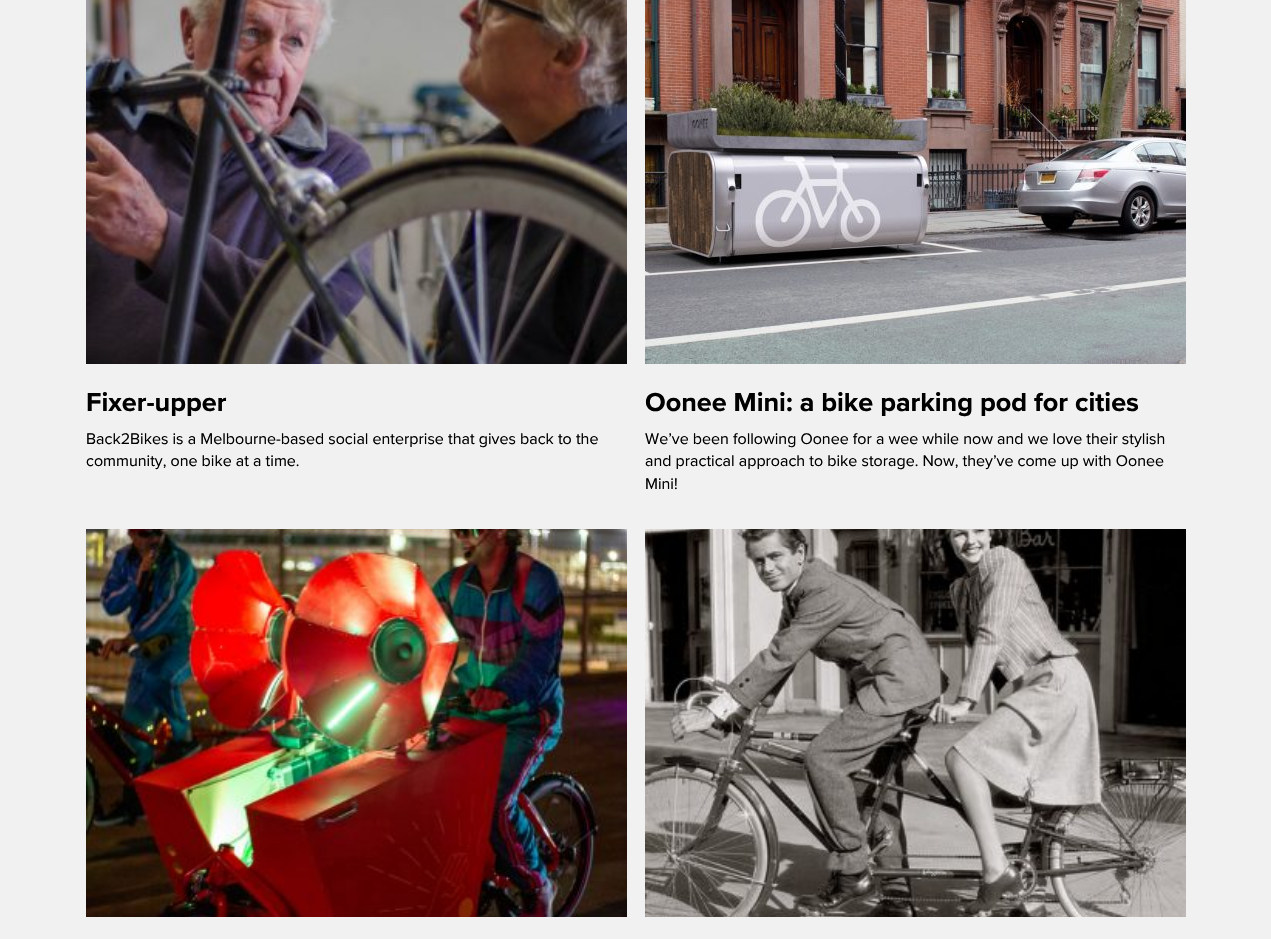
void draw(SkCanvas* canvas) {
	SkPaint fill;
	fill.setAntiAlias(true);
	auto makeFont = [&](const char* family, int weight, float size, bool italic = false) {
		SkFontStyle style(weight, SkFontStyle::kNormal_Width,
			italic ? SkFontStyle::kItalic_Slant : SkFontStyle::kUpright_Slant);
		SkFont result(fontMgr->matchFamilyStyle(family, style), size);
		result.setSubpixel(true);
		return result;
	};
	auto text = [&](const char* s, float x, float y, const SkFont& font) {
		canvas->drawString(s, x, y, font, fill);
	};
	auto picture = [&](const char* path, float l, float t, float r, float b) {
		auto image = SkImages::DeferredFromEncodedData(SkData::MakeFromFileName(path));
		canvas->drawImageRect(image, SkRect::MakeLTRB(l, t, r, b), SkSamplingOptions());
	};
	canvas->clear(0xFFF1F1F1);
	picture("image0.png", 86, 0, 627, 364);
	picture("image1.png", 645, 0, 1186, 364);
	picture("image2.png", 86, 529, 627, 917);
	picture("image3.png", 645, 529, 1186, 917);
	auto font1 = makeFont("Proxima Nova", 700, 27);
	fill.setColor(0xFF000000);
	text("Fixer-upper", 86, 411, font1);
	auto font2 = makeFont("Proxima Nova", 400, 16);
	text("Back2Bikes is a Melbourne-based social enterprise that gives back to the", 86, 444, font2);
	text("community, one bike at a time.", 86, 466, font2);
	text("Oonee Mini: a bike parking pod for cities", 645, 411, font1);
	text("We’ve been following Oonee for a wee while now and we love their stylish", 645, 444, font2);
	text("and practical approach to bike storage. Now, they’ve come up with Oonee", 645, 466, font2);
	text("Mini!", 645, 489, font2);
}
